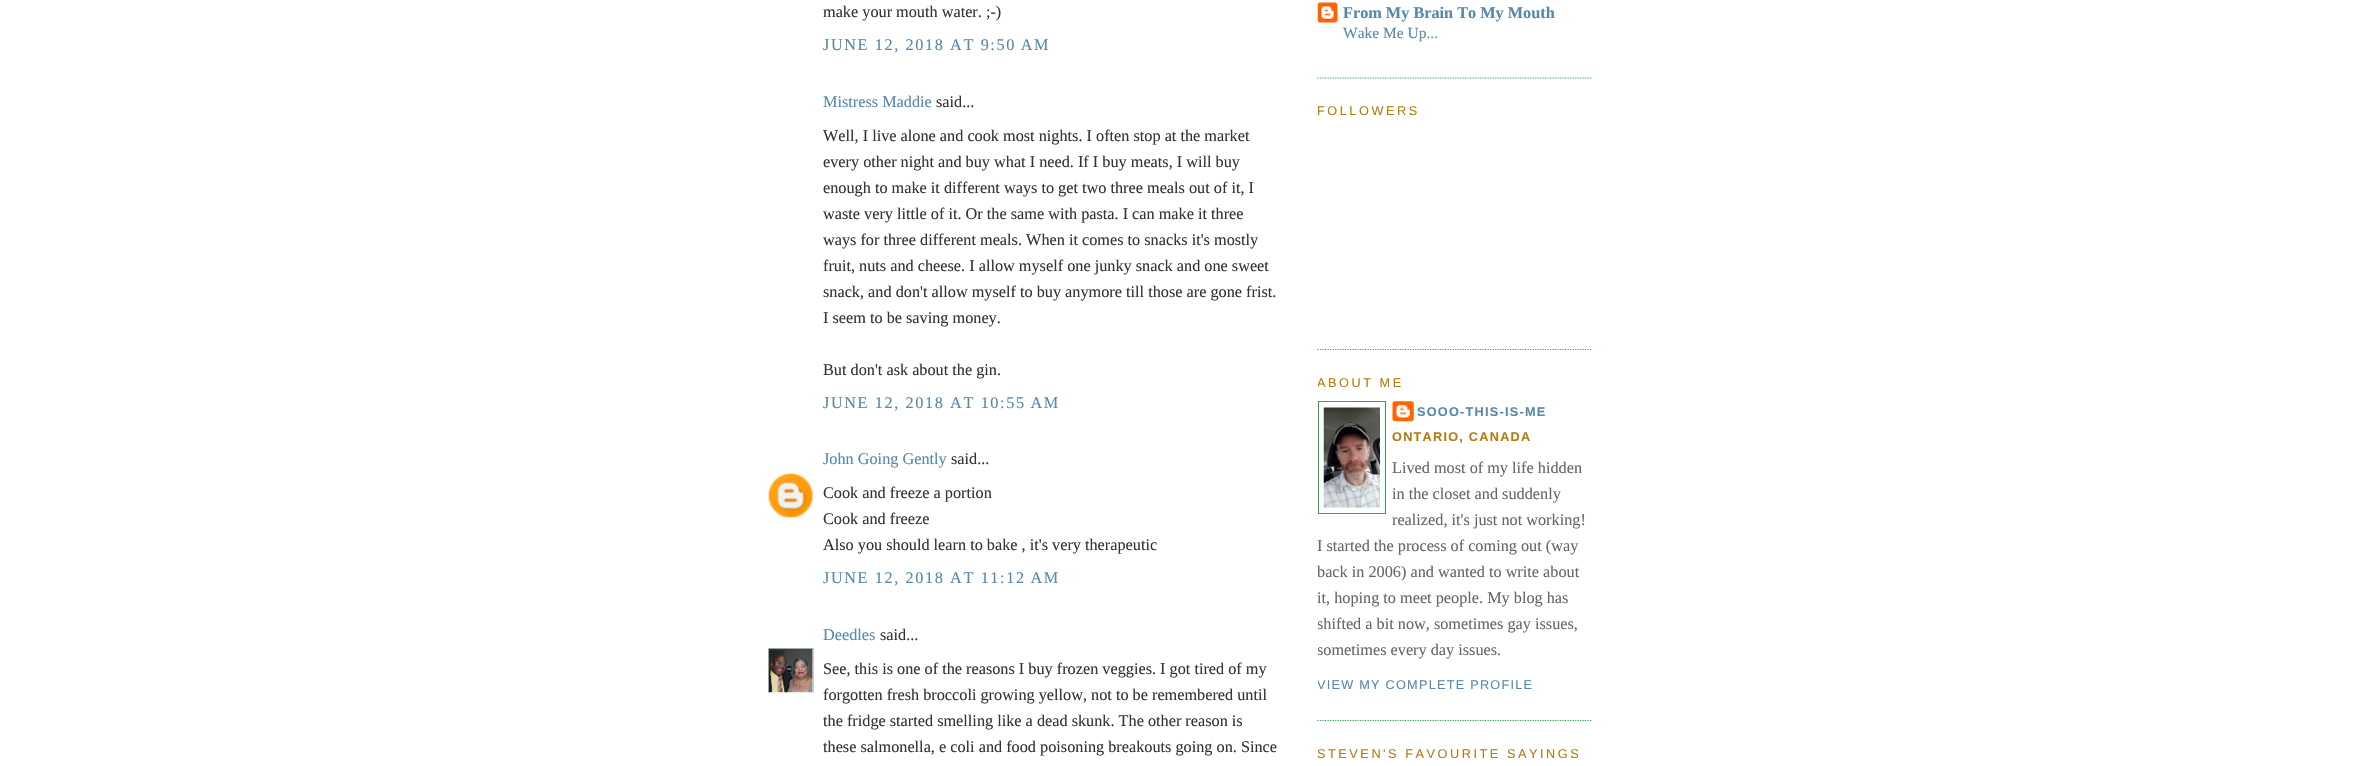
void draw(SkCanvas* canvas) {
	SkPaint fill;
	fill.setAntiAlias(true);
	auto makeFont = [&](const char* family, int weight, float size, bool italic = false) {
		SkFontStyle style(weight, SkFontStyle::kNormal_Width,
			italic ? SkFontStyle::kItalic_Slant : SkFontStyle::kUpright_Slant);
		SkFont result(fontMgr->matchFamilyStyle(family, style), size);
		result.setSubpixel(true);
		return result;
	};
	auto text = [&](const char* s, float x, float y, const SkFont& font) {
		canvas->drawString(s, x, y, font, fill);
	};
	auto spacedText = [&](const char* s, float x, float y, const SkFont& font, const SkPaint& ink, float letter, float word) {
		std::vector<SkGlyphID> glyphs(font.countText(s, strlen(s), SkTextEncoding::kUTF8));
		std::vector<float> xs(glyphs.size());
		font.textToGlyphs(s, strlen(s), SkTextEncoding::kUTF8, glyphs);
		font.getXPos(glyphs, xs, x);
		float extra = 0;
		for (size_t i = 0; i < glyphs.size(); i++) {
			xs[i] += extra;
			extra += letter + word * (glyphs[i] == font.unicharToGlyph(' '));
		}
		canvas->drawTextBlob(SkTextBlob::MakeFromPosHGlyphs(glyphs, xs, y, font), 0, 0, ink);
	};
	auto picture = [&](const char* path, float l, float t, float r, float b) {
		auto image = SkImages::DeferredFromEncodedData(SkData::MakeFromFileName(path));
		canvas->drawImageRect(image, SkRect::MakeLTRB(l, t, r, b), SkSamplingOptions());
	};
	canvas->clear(0xFFFFFFFF);
	picture("image0.png", 768, 473, 813, 518);
	canvas->save();
	canvas->clipRect(SkRect::MakeLTRB(768, 648, 814, 693));
	fill.setStyle(SkPaint::kStroke_Style);
	fill.setStrokeWidth(1);
	fill.setColor(0xFFCCCCCC);
	canvas->drawRect(SkRect::MakeLTRB(768.5f, 648.5f, 813.5f, 693.5f), fill);
	canvas->restore();
	picture("image1.png", 768, 648, 813, 693);
	fill.setStrokeWidth(1.2f);
	fill.setColor(0xFF2BA94F);
	fill.setPathEffect(SkDashPathEffect::Make({{1.25f, 1.25f}}, 0));
	canvas->drawPath(SkPathBuilder().moveTo(1317.5f, 78).lineTo(1592.5f, 78).detach(), fill);
	fill.setPathEffect(nullptr);
	picture("image2.png", 1317, 2, 1338, 23);
	fill.setPathEffect(SkDashPathEffect::Make({{1.25f, 1.25f}}, 0));
	canvas->drawPath(SkPathBuilder().moveTo(1317.5f, 349.5f).lineTo(1592.5f, 349.5f).detach(), fill);
	fill.setPathEffect(nullptr);
	fill.setPathEffect(SkDashPathEffect::Make({{1.25f, 1.25f}}, 0));
	canvas->drawPath(SkPathBuilder().moveTo(1317.5f, 720.5f).lineTo(1592.5f, 720.5f).detach(), fill);
	fill.setPathEffect(nullptr);
	fill.setStrokeWidth(1);
	canvas->drawRect(SkRect::MakeLTRB(1318.5f, 401.5f, 1385.5f, 513.5f), fill);
	picture("image3.png", 1323, 407, 1380, 508);
	picture("image4.png", 1392, 401, 1414, 422);
	auto font1 = makeFont("Liberation Serif", 400, 16.25f);
	fill.setStyle(SkPaint::kFill_Style);
	fill.setColor(0xFF333333);
	text("make your mouth water. ;-)", 823, 17, font1);
	fill.setColor(0xFF5588AA);
	spacedText("JUNE 12, 2018 AT 9:50 AM", 823, 50, font1, fill, 1.6f, 0);
	text("Mistress Maddie", 823, 107, font1);
	fill.setColor(0xFF333333);
	text("said...", 936, 107, font1);
	text("Well, I live alone and cook most nights. I often stop at the market", 823, 141, font1);
	text("every other night and buy what I need. If I buy meats, I will buy", 823, 167, font1);
	text("enough to make it different ways to get two three meals out of it, I", 823, 193, font1);
	text("waste very little of it. Or the same with pasta. I can make it three", 823, 219, font1);
	text("ways for three different meals. When it comes to snacks it's mostly", 823, 245, font1);
	text("fruit, nuts and cheese. I allow myself one junky snack and one sweet", 823, 271, font1);
	text("snack, and don't allow myself to buy anymore till those are gone frist.", 823, 297, font1);
	text("I seem to be saving money.", 823, 323, font1);
	text("But don't ask about the gin.", 823, 375, font1);
	fill.setColor(0xFF5588AA);
	spacedText("JUNE 12, 2018 AT 10:55 AM", 823, 408, font1, fill, 1.6f, 0);
	text("John Going Gently", 823, 464, font1);
	fill.setColor(0xFF333333);
	text("said...", 951, 464, font1);
	text("Cook and freeze a portion", 823, 498, font1);
	text("Cook and freeze", 823, 524, font1);
	text("Also you should learn to bake , it's very therapeutic", 823, 550, font1);
	fill.setColor(0xFF5588AA);
	spacedText("JUNE 12, 2018 AT 11:12 AM", 823, 583, font1, fill, 1.6f, 0);
	text("Deedles", 823, 640, font1);
	fill.setColor(0xFF333333);
	text("said...", 880, 640, font1);
	text("See, this is one of the reasons I buy frozen veggies. I got tired of my", 823, 674, font1);
	text("forgotten fresh broccoli growing yellow, not to be remembered until", 823, 700, font1);
	text("the fridge started smelling like a dead skunk. The other reason is", 823, 726, font1);
	text("these salmonella, e coli and food poisoning breakouts going on. Since", 823, 752, font1);
	auto font2 = makeFont("Liberation Serif", 700, 16.25f);
	fill.setColor(0xFF5588AA);
	text("From My Brain To My Mouth", 1343, 18, font2);
	auto font3 = makeFont("Liberation Serif", 400, 15.5f);
	text("Wake Me Up...", 1343, 38, font3);
	canvas->save();
	canvas->clipRect(SkRect::MakeLTRB(1318, 0, 1593, 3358));
	auto font4 = makeFont("Liberation Sans", 400, 12.7f);
	fill.setColor(0xFFB47B10);
	spacedText("FOLLOWERS", 1317, 115, font4, fill, 2.55f, 0);
	spacedText("ABOUT ME", 1317, 387, font4, fill, 2.55f, 0);
	canvas->restore();
	auto font5 = makeFont("Liberation Sans", 700, 12.7f);
	fill.setColor(0xFF5588AA);
	spacedText("SOOO-THIS-IS-ME", 1417, 416, font5, fill, 1.25f, 0);
	fill.setColor(0xFFB47B10);
	spacedText("ONTARIO, CANADA", 1392, 441, font5, fill, 1.25f, 0);
	fill.setColor(0xFF666666);
	text("Lived most of my life hidden", 1392, 473, font1);
	text("in the closet and suddenly", 1392, 499, font1);
	text("realized, it's just not working!", 1392, 525, font1);
	text("I started the process of coming out (way", 1317, 551, font1);
	text("back in 2006) and wanted to write about", 1317, 577, font1);
	text("it, hoping to meet people. My blog has", 1317, 603, font1);
	canvas->save();
	canvas->clipRect(SkRect::MakeLTRB(1318, 0, 1593, 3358));
	text("shifted a bit now, sometimes gay issues,", 1317, 629, font1);
	text("sometimes every day issues.", 1317, 655, font1);
	fill.setColor(0xFF5588AA);
	spacedText("VIEW MY COMPLETE PROFILE", 1317, 689, font4, fill, 1.25f, 0);
	fill.setColor(0xFFB47B10);
	spacedText("STEVEN'S FAVOURITE SAYINGS", 1317, 758, font4, fill, 2.55f, 0);
	canvas->restore();
}
